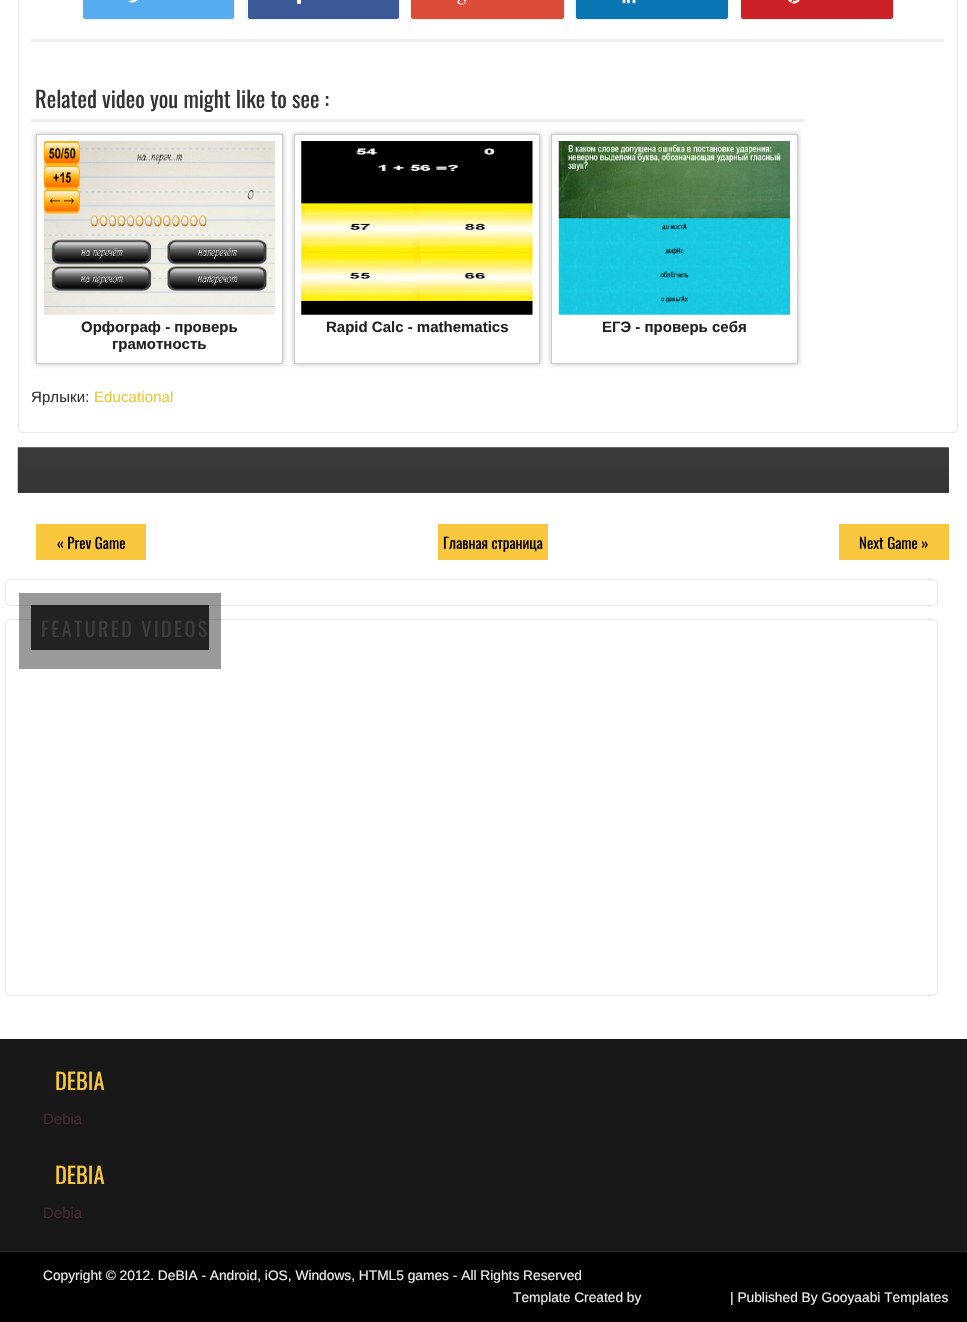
void draw(SkCanvas* canvas) {
	SkPaint fill;
	fill.setAntiAlias(true);
	auto makeFont = [&](const char* family, int weight, float size, bool italic = false) {
		SkFontStyle style(weight, SkFontStyle::kNormal_Width,
			italic ? SkFontStyle::kItalic_Slant : SkFontStyle::kUpright_Slant);
		SkFont result(fontMgr->matchFamilyStyle(family, style), size);
		result.setSubpixel(true);
		return result;
	};
	auto text = [&](const char* s, float x, float y, const SkFont& font) {
		canvas->drawString(s, x, y, font, fill);
	};
	auto spacedText = [&](const char* s, float x, float y, const SkFont& font, const SkPaint& ink, float letter, float word) {
		std::vector<SkGlyphID> glyphs(font.countText(s, strlen(s), SkTextEncoding::kUTF8));
		std::vector<float> xs(glyphs.size());
		font.textToGlyphs(s, strlen(s), SkTextEncoding::kUTF8, glyphs);
		font.getXPos(glyphs, xs, x);
		float extra = 0;
		for (size_t i = 0; i < glyphs.size(); i++) {
			xs[i] += extra;
			extra += letter + word * (glyphs[i] == font.unicharToGlyph(' '));
		}
		canvas->drawTextBlob(SkTextBlob::MakeFromPosHGlyphs(glyphs, xs, y, font), 0, 0, ink);
	};
	auto box = [&](float l, float t, float r, float b) {
		canvas->drawRect(SkRect::MakeLTRB(l, t, r, b), fill);
	};
	auto roundBox = [&](float l, float t, float r, float b, float radius) {
		canvas->drawRoundRect(SkRect::MakeLTRB(l, t, r, b), radius, radius, fill);
	};
	auto picture = [&](const char* path, float l, float t, float r, float b) {
		auto image = SkImages::DeferredFromEncodedData(SkData::MakeFromFileName(path));
		canvas->drawImageRect(image, SkRect::MakeLTRB(l, t, r, b), SkSamplingOptions());
	};
	canvas->clear(0xFFFFFFFF);
	fill.setStyle(SkPaint::kStroke_Style);
	fill.setStrokeWidth(1);
	fill.setColor(0xFFE7E7E7);
	canvas->drawRoundRect(SkRect::MakeLTRB(18.5f, -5.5f, 957.5f, 432.5f), 4.5f, 4.5f, fill);
	fill.setStyle(SkPaint::kFill_Style);
	fill.setColor(0xFFEEEEEE);
	box(31, 39, 944, 42);
	fill.setStyle(SkPaint::kStroke_Style);
	canvas->drawRect(SkRect::MakeLTRB(81.5f, -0.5f, 234.5f, 19.5f), fill);
	fill.setStyle(SkPaint::kFill_Style);
	fill.setColor(0xFF55ACEE);
	roundBox(83, -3, 234, 19, 2.5f);
	picture("image0.png", 128, 0, 138, 3);
	fill.setStyle(SkPaint::kStroke_Style);
	fill.setColor(0xFFEEEEEE);
	canvas->drawRect(SkRect::MakeLTRB(246.5f, -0.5f, 399.5f, 19.5f), fill);
	fill.setStyle(SkPaint::kFill_Style);
	fill.setColor(0xFF3B5998);
	roundBox(248, -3, 399, 19, 2.5f);
	fill.setColor(0xFFFFFFFF);
	box(297, 0, 301, 4);
	fill.setStyle(SkPaint::kStroke_Style);
	fill.setColor(0xFFEEEEEE);
	canvas->drawRect(SkRect::MakeLTRB(410.5f, -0.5f, 564.5f, 19.5f), fill);
	fill.setStyle(SkPaint::kFill_Style);
	fill.setColor(0xFFDD4B39);
	roundBox(411, -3, 564, 19, 2.5f);
	picture("image1.png", 457, 0, 466, 5);
	fill.setStyle(SkPaint::kStroke_Style);
	fill.setColor(0xFFEEEEEE);
	canvas->drawRect(SkRect::MakeLTRB(575.5f, -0.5f, 728.5f, 19.5f), fill);
	fill.setStyle(SkPaint::kFill_Style);
	fill.setColor(0xFF0976B4);
	roundBox(576, -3, 728, 19, 2.5f);
	picture("image2.png", 622, 0, 636, 4);
	fill.setStyle(SkPaint::kStroke_Style);
	fill.setColor(0xFFEEEEEE);
	canvas->drawRect(SkRect::MakeLTRB(740.5f, -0.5f, 893.5f, 19.5f), fill);
	fill.setStyle(SkPaint::kFill_Style);
	fill.setColor(0xFFCC2127);
	roundBox(741, -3, 893, 19, 2.5f);
	picture("image3.png", 788, 0, 800, 4);
	fill.setColor(0xFFEEEEEE);
	box(31, 119, 804, 122);
	canvas->save();
	canvas->clipPath(SkPathBuilder(SkPathFillType::kEvenOdd).moveTo(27, 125).lineTo(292, 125).lineTo(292, 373).lineTo(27, 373).close().moveTo(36, 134).lineTo(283, 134).lineTo(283, 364).lineTo(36, 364).close().detach(), true);
	fill.setColor(0xFFBBBBBB);
	fill.setMaskFilter(SkMaskFilter::MakeBlur(kNormal_SkBlurStyle, 2.5f));
	canvas->drawRect(SkRect::MakeLTRB(36, 134, 283, 364), fill);
	fill.setMaskFilter(nullptr);
	canvas->restore();
	fill.setStyle(SkPaint::kStroke_Style);
	fill.setColor(0xFFCCCCCC);
	canvas->drawRect(SkRect::MakeLTRB(36.5f, 134.5f, 282.5f, 363.5f), fill);
	picture("image4.png", 43, 141, 275, 315);
	canvas->save();
	canvas->clipPath(SkPathBuilder(SkPathFillType::kEvenOdd).moveTo(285, 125).lineTo(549, 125).lineTo(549, 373).lineTo(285, 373).close().moveTo(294, 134).lineTo(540, 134).lineTo(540, 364).lineTo(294, 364).close().detach(), true);
	fill.setStyle(SkPaint::kFill_Style);
	fill.setColor(0xFFBBBBBB);
	fill.setMaskFilter(SkMaskFilter::MakeBlur(kNormal_SkBlurStyle, 2.5f));
	canvas->drawRect(SkRect::MakeLTRB(294, 134, 540, 364), fill);
	fill.setMaskFilter(nullptr);
	canvas->restore();
	fill.setStyle(SkPaint::kStroke_Style);
	fill.setColor(0xFFCCCCCC);
	canvas->drawRect(SkRect::MakeLTRB(294.5f, 134.5f, 539.5f, 363.5f), fill);
	picture("image5.png", 301, 141, 533, 315);
	canvas->save();
	canvas->clipPath(SkPathBuilder(SkPathFillType::kEvenOdd).moveTo(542, 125).lineTo(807, 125).lineTo(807, 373).lineTo(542, 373).close().moveTo(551, 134).lineTo(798, 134).lineTo(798, 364).lineTo(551, 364).close().detach(), true);
	fill.setStyle(SkPaint::kFill_Style);
	fill.setColor(0xFFBBBBBB);
	fill.setMaskFilter(SkMaskFilter::MakeBlur(kNormal_SkBlurStyle, 2.5f));
	canvas->drawRect(SkRect::MakeLTRB(551, 134, 798, 364), fill);
	fill.setMaskFilter(nullptr);
	canvas->restore();
	fill.setStyle(SkPaint::kStroke_Style);
	fill.setColor(0xFFCCCCCC);
	canvas->drawRect(SkRect::MakeLTRB(551.5f, 134.5f, 797.5f, 363.5f), fill);
	picture("image6.png", 558, 141, 790, 315);
	fill.setStyle(SkPaint::kFill_Style);
	fill.setColor(0xFF444444);
	box(18, 448, 949, 493);
	picture("image7.png", 17, 447, 949, 493);
	fill.setColor(0xFFF9C73D);
	box(36, 524, 146, 560);
	box(438, 524, 548, 560);
	box(839, 524, 949, 560);
	fill.setStyle(SkPaint::kStroke_Style);
	fill.setColor(0xFFE7E7E7);
	canvas->drawRoundRect(SkRect::MakeLTRB(5.5f, 619.5f, 937.5f, 995.5f), 4.5f, 4.5f, fill);
	canvas->drawRoundRect(SkRect::MakeLTRB(5.5f, 579.5f, 937.5f, 605.5f), 4.5f, 4.5f, fill);
	fill.setStyle(SkPaint::kFill_Style);
	fill.setColor(0x66000000);
	box(19, 593, 221, 669);
	fill.setColor(0xFF222222);
	box(31, 605, 209, 650);
	fill.setColor(0xFF181818);
	box(0, 1039, 967, 1251);
	fill.setColor(0xFF000000);
	box(0, 1252, 967, 1322);
	fill.setColor(0xFF2B2B2B);
	box(0, 1251, 967, 1252);
	auto font1 = makeFont("Oswald", 400, 22.5f);
	fill.setColor(0xFF333333);
	text("Related video you might like to see :", 35, 108, font1);
	auto font2 = makeFont("Liberation Sans", 700, 15);
	fill.setColor(0xFF222222);
	text("Орфограф - проверь", 81, 332, font2);
	text("грамотность", 112, 349, font2);
	text("Rapid Calc - mathematics", 326, 332, font2);
	text("ЕГЭ - проверь себя", 602, 332, font2);
	auto font3 = makeFont("Liberation Sans", 400, 15);
	fill.setColor(0xFF333333);
	spacedText("Ярлыки:", 31, 402, font3, fill, 0.1f, 0);
	fill.setColor(0xFFEBC73D);
	spacedText("Educational", 94, 402, font3, fill, 0.1f, 0);
	auto font4 = makeFont("Oswald", 400, 15);
	fill.setColor(0xFF000000);
	text("« Prev Game", 57, 549, font4);
	text("Главная страница", 443, 549, font4);
	text("Next Game »", 859, 549, font4);
	auto font5 = makeFont("Oswald", 400, 20);
	fill.setColor(0xFF3C3C3C);
	spacedText("FEATURED VIDEOS", 41, 637, font5, fill, 2.4f, 0);
	fill.setColor(0xFFF9C73D);
	text("DEBIA", 55, 1090, font1);
	fill.setColor(0xFF422929);
	text("Debia", 43, 1124, font3);
	fill.setColor(0xFFF9C73D);
	text("DEBIA", 55, 1184, font1);
	fill.setColor(0xFF422929);
	text("Debia", 43, 1218, font3);
	auto font6 = makeFont("Liberation Sans", 400, 13.75f);
	fill.setColor(0xFFF4EDE9);
	text("Copyright © 2012. DeBIA - Android, iOS, Windows, HTML5 games - All Rights Reserved", 43, 1280, font6);
	text("Template Created by", 513, 1302, font6);
	text("| Published By Gooyaabi Templates", 730, 1302, font6);
}
